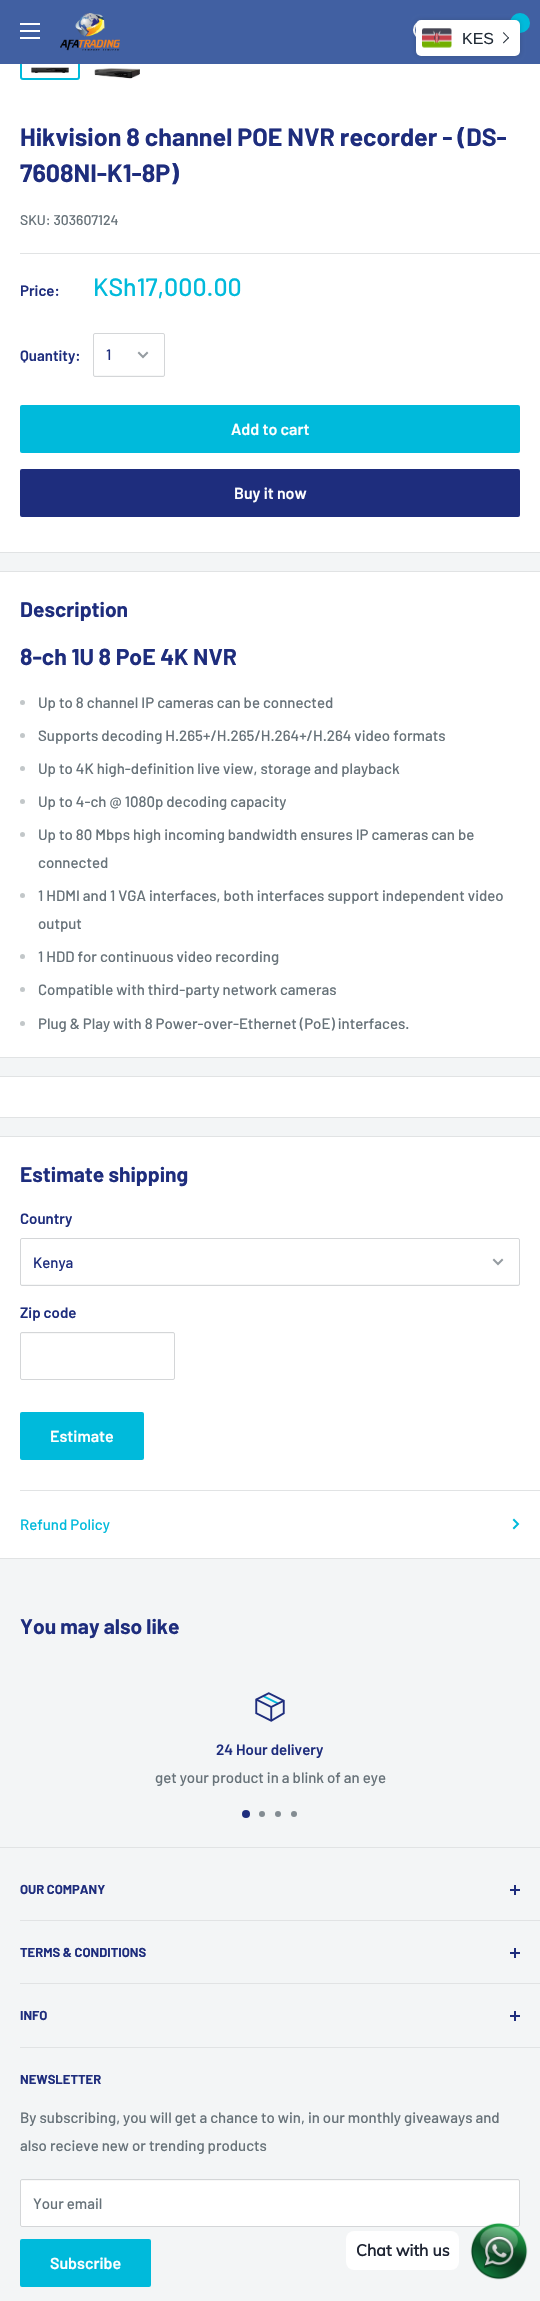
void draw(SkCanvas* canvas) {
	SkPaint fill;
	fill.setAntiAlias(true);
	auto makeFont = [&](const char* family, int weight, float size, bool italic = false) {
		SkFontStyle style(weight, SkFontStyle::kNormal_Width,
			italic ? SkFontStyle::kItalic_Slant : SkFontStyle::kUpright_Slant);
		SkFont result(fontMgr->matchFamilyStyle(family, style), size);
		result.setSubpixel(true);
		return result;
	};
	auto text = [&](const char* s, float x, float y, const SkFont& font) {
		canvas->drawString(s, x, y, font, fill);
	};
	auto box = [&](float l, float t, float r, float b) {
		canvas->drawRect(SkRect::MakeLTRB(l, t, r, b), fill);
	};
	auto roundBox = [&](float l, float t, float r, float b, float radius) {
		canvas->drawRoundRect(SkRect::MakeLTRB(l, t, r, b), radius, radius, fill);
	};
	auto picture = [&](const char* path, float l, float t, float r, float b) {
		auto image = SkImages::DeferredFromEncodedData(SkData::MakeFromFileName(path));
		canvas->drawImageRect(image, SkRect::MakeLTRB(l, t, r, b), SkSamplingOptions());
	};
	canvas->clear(0xFFF3F5F6);
	fill.setColor(0xFFFFFFFF);
	box(0, 64, 540, 552);
	fill.setStyle(SkPaint::kStroke_Style);
	fill.setStrokeWidth(2);
	fill.setColor(0xFF00BADB);
	canvas->drawRoundRect(SkRect::MakeLTRB(21, 61, 79, 79), 2, 2, fill);
	fill.setStyle(SkPaint::kFill_Style);
	fill.setColor(0xFF4160A2);
	box(0, 0, 540, 64);
	picture("image0.png", 20, 23, 40, 39);
	picture("image1.png", 60, 13, 120, 51);
	fill.setStyle(SkPaint::kStroke_Style);
	fill.setStrokeWidth(2.1f);
	fill.setColor(0xFFFFFFFF);
	canvas->drawCircle(422, 30, 8, fill);
	fill.setStyle(SkPaint::kFill_Style);
	fill.setColor(0xFF00BADB);
	canvas->drawCircle(520, 23, 10, fill);
	fill.setColor(0x40212B36);
	fill.setMaskFilter(SkMaskFilter::MakeBlur(kNormal_SkBlurStyle, 2.5f));
	canvas->drawRoundRect(SkRect::MakeLTRB(416, 20, 520, 56), 5, 5, fill);
	fill.setMaskFilter(nullptr);
	fill.setColor(0xFFFFFFFF);
	roundBox(416, 20, 520, 56, 5);
	picture("image2.png", 422, 28, 452, 48);
	fill.setColor(0xFF212B36);
	canvas->drawPath(SkPathBuilder().moveTo(503, 33).lineTo(503.5f, 32).lineTo(509, 38).lineTo(508.5f, 38.5f).close().detach(), fill);
	canvas->drawPath(SkPathBuilder().moveTo(503, 42.5f).lineTo(508.5f, 37).lineTo(509, 38).lineTo(503.5f, 43.5f).close().detach(), fill);
	picture("image3.png", 31, 67, 69, 73);
	picture("image4.png", 94, 68, 140, 79);
	fill.setColor(0xFFE1E3E4);
	box(0, 552, 540, 553);
	box(20, 253, 540, 254);
	fill.setColor(0xFFF6F7F7);
	canvas->drawPath(SkPathBuilder().moveTo(94, 374).cubicTo(94, 375, 94, 376, 95, 376).lineTo(152, 376).cubicTo(155, 376, 164, 379, 164, 374).lineTo(163, 375).lineTo(99, 375).cubicTo(98, 375, 95, 376, 94, 374).close().detach(), fill);
	fill.setStyle(SkPaint::kStroke_Style);
	fill.setStrokeWidth(1);
	fill.setColor(0xFFD4D6D8);
	canvas->drawRoundRect(SkRect::MakeLTRB(93.5f, 333.5f, 164.5f, 376.5f), 1.5f, 1.5f, fill);
	fill.setStrokeWidth(2);
	fill.setStrokeCap(SkPaint::kSquare_Cap);
	fill.setColor(0xFF959CA1);
	canvas->drawPath(SkPathBuilder().moveTo(147, 353).lineTo(143, 357).lineTo(139, 353).detach(), fill);
	fill.setStyle(SkPaint::kFill_Style);
	fill.setColor(0xFF00BADB);
	roundBox(20, 405, 520, 453, 2);
	fill.setColor(0xFF1E2D7D);
	roundBox(20, 469, 520, 517, 2);
	fill.setColor(0xFFFFFFFF);
	box(0, 572, 540, 1057);
	fill.setColor(0xFFE1E3E4);
	box(0, 571, 540, 572);
	box(0, 1057, 540, 1058);
	fill.setColor(0xFFC2C7C9);
	canvas->drawCircle(22.5f, 702.5f, 2.5f, fill);
	canvas->drawCircle(22.5f, 735.5f, 2.5f, fill);
	canvas->drawCircle(22.5f, 768.5f, 2.5f, fill);
	canvas->drawCircle(22.5f, 801.5f, 2.5f, fill);
	canvas->drawCircle(22.5f, 834.5f, 2.5f, fill);
	canvas->drawCircle(22.5f, 895.5f, 2.5f, fill);
	canvas->drawCircle(22.5f, 956.5f, 2.5f, fill);
	canvas->drawCircle(22.5f, 989.5f, 2.5f, fill);
	canvas->drawCircle(22.5f, 1023.5f, 2.5f, fill);
	fill.setColor(0xFFFFFFFF);
	box(0, 1077, 540, 1117);
	fill.setColor(0xFFE1E3E4);
	box(0, 1076, 540, 1077);
	box(0, 1117, 540, 1118);
	fill.setColor(0xFFFFFFFF);
	box(0, 1137, 540, 1558);
	fill.setColor(0xFFE1E3E4);
	box(0, 1136, 540, 1137);
	box(0, 1558, 540, 1559);
	fill.setColor(0xFFF6F7F7);
	canvas->drawPath(SkPathBuilder().moveTo(21, 1283).cubicTo(21, 1284, 21, 1285, 22, 1285).lineTo(519, 1285).lineTo(519, 1283).cubicTo(519, 1284, 519, 1284, 518, 1284).lineTo(22, 1284).cubicTo(21, 1284, 21, 1284, 21, 1283).close().detach(), fill);
	fill.setStyle(SkPaint::kStroke_Style);
	fill.setStrokeWidth(1);
	fill.setStrokeCap(SkPaint::kButt_Cap);
	fill.setColor(0xFFD4D6D8);
	canvas->drawRoundRect(SkRect::MakeLTRB(20.5f, 1238.5f, 519.5f, 1285.5f), 1.5f, 1.5f, fill);
	fill.setStrokeWidth(2);
	fill.setStrokeCap(SkPaint::kSquare_Cap);
	fill.setColor(0xFF959CA1);
	canvas->drawPath(SkPathBuilder().moveTo(502, 1260).lineTo(498, 1264).lineTo(494, 1260).detach(), fill);
	fill.setStyle(SkPaint::kFill_Style);
	fill.setColor(0xFFF8F8F8);
	canvas->drawPath(SkPathBuilder().moveTo(22, 1334).lineTo(173, 1334).cubicTo(174, 1334, 174, 1334, 174, 1335).cubicTo(174, 1334, 174, 1333, 173, 1333).lineTo(21, 1333).lineTo(21, 1335).cubicTo(21, 1334, 21, 1334, 22, 1334).close().detach(), fill);
	fill.setStyle(SkPaint::kStroke_Style);
	fill.setStrokeWidth(1);
	fill.setStrokeCap(SkPaint::kButt_Cap);
	fill.setColor(0xFFD4D6D8);
	canvas->drawRoundRect(SkRect::MakeLTRB(20.5f, 1332.5f, 174.5f, 1379.5f), 1.5f, 1.5f, fill);
	fill.setStyle(SkPaint::kFill_Style);
	fill.setColor(0xFF00BADB);
	roundBox(20, 1412, 144, 1460, 2);
	fill.setColor(0xFFE1E3E4);
	box(20, 1490, 540, 1491);
	fill.setStyle(SkPaint::kStroke_Style);
	fill.setStrokeWidth(2);
	fill.setStrokeCap(SkPaint::kSquare_Cap);
	fill.setColor(0xFF00BADB);
	canvas->drawPath(SkPathBuilder().moveTo(514, 1520).lineTo(518, 1524).lineTo(514, 1528).detach(), fill);
	picture("image5.png", 255, 1692, 285, 1722);
	fill.setStyle(SkPaint::kFill_Style);
	fill.setColor(0xFF1E2D7D);
	canvas->drawCircle(246, 1814, 4, fill);
	fill.setColor(0xFF838C92);
	canvas->drawCircle(262, 1814, 3, fill);
	canvas->drawCircle(278, 1814, 3, fill);
	canvas->drawCircle(294, 1814, 3, fill);
	fill.setColor(0xFFE1E3E4);
	box(0, 1847, 540, 1848);
	box(20, 1920, 540, 1921);
	fill.setColor(0xFF1E2D7D);
	box(514, 1885, 516, 1895);
	box(510, 1889, 520, 1891);
	fill.setColor(0xFFE1E3E4);
	box(20, 1983, 540, 1984);
	fill.setColor(0xFF1E2D7D);
	box(514, 1948, 516, 1958);
	box(510, 1952, 520, 1954);
	fill.setColor(0xFFE1E3E4);
	box(20, 2047, 540, 2048);
	fill.setColor(0xFF1E2D7D);
	box(514, 2011, 516, 2021);
	box(510, 2015, 520, 2017);
	fill.setColor(0xFFFFFFFF);
	roundBox(20, 2179, 520, 2227, 2);
	fill.setColor(0xFFF8F8F8);
	canvas->drawPath(SkPathBuilder().moveTo(22, 2181).lineTo(518, 2181).cubicTo(519, 2181, 519, 2181, 519, 2182).lineTo(519, 2180).lineTo(22, 2180).cubicTo(21, 2180, 21, 2181, 21, 2182).cubicTo(21, 2181, 21, 2181, 22, 2181).close().detach(), fill);
	fill.setStyle(SkPaint::kStroke_Style);
	fill.setStrokeWidth(1);
	fill.setStrokeCap(SkPaint::kButt_Cap);
	fill.setColor(0xFFD4D6D8);
	canvas->drawRoundRect(SkRect::MakeLTRB(20.5f, 2179.5f, 519.5f, 2226.5f), 1.5f, 1.5f, fill);
	fill.setStyle(SkPaint::kFill_Style);
	fill.setColor(0xFF00BADB);
	roundBox(20, 2239, 151, 2287, 2);
	picture("image6.png", 470, 2223, 528, 2280);
	fill.setColor(0xFFFFFFFF);
	roundBox(346, 2231, 459, 2270, 8);
	auto font1 = makeFont("Liberation Sans", 400, 16);
	fill.setColor(0xFF212B36);
	text("KES", 462, 44, font1);
	auto font2 = makeFont("Barlow", 700, 25);
	fill.setColor(0xFF1E2D7D);
	text("Hikvision 8 channel POE NVR recorder - (DS-", 20, 146, font2);
	text("7608NI-K1-8P)", 20, 182, font2);
	auto font3 = makeFont("Barlow", 500, 14);
	fill.setColor(0xFF677279);
	text("SKU: 303607124", 20, 225, font3);
	auto font4 = makeFont("Barlow", 600, 15);
	fill.setColor(0xFF1E2D7D);
	text("Price:", 20, 296, font4);
	auto font5 = makeFont("Barlow", 500, 25);
	fill.setColor(0xFF00BADB);
	text("KSh17,000.00", 93, 296, font5);
	fill.setColor(0xFF1E2D7D);
	text("Quantity:", 20, 361, font4);
	auto font6 = makeFont("Barlow", 500, 15);
	text("1", 106, 360, font6);
	auto font7 = makeFont("Barlow", 600, 16);
	fill.setColor(0xFFFFFFFF);
	text("Add to cart", 231, 435, font7);
	text("Buy it now", 234, 499, font7);
	auto font8 = makeFont("Barlow", 700, 21);
	fill.setColor(0xFF1E2D7D);
	text("Description", 20, 617, font8);
	auto font9 = makeFont("Barlow", 700, 23);
	text("8-ch 1U 8 PoE 4K NVR", 20, 665, font9);
	fill.setColor(0xFF677279);
	text("Up to 8 channel IP cameras can be connected", 38, 708, font6);
	text("Supports decoding H.265+/H.265/H.264+/H.264 video formats", 38, 741, font6);
	text("Up to 4K high-definition live view, storage and playback", 38, 774, font6);
	text("Up to 4-ch @ 1080p decoding capacity", 38, 807, font6);
	text("Up to 80 Mbps high incoming bandwidth ensures IP cameras can be", 38, 840, font6);
	text("connected", 38, 868, font6);
	text("1 HDMI and 1 VGA interfaces, both interfaces support independent video", 38, 901, font6);
	text("output", 38, 929, font6);
	text("1 HDD for continuous video recording", 38, 962, font6);
	text("Compatible with third-party network cameras", 38, 995, font6);
	text("Plug & Play with 8 Power-over-Ethernet (PoE) interfaces.", 38, 1029, font6);
	fill.setColor(0xFF1E2D7D);
	text("Estimate shipping", 20, 1182, font8);
	text("Country", 20, 1224, font4);
	text("Kenya", 33, 1268, font6);
	text("Zip code", 20, 1318, font4);
	fill.setColor(0xFFFFFFFF);
	text("Estimate", 50, 1442, font7);
	fill.setColor(0xFF00BADB);
	text("Refund Policy", 20, 1530, font6);
	fill.setColor(0xFF1E2D7D);
	text("You may also like", 20, 1634, font8);
	text("24 Hour delivery", 216, 1755, font4);
	fill.setColor(0xFF677279);
	text("get your product in a blink of an eye", 155, 1783, font6);
	auto font10 = makeFont("Barlow", 700, 13);
	fill.setColor(0xFF1E2D7D);
	text("OUR COMPANY", 20, 1894, font10);
	text("TERMS & CONDITIONS", 20, 1957, font10);
	text("INFO", 20, 2020, font10);
	text("NEWSLETTER", 20, 2084, font10);
	fill.setColor(0xFF677279);
	text("By subscribing, you will get a chance to win, in our monthly giveaways and", 20, 2123, font6);
	text("also recieve new or trending products", 20, 2151, font6);
	text("Your email", 33, 2209, font6);
	fill.setColor(0xFFFFFFFF);
	text("Subscribe", 50, 2269, font7);
	auto font11 = makeFont("Muli", 700, 16);
	fill.setColor(0xFF1E2433);
	text("Chat with us", 356, 2256, font11);
}
